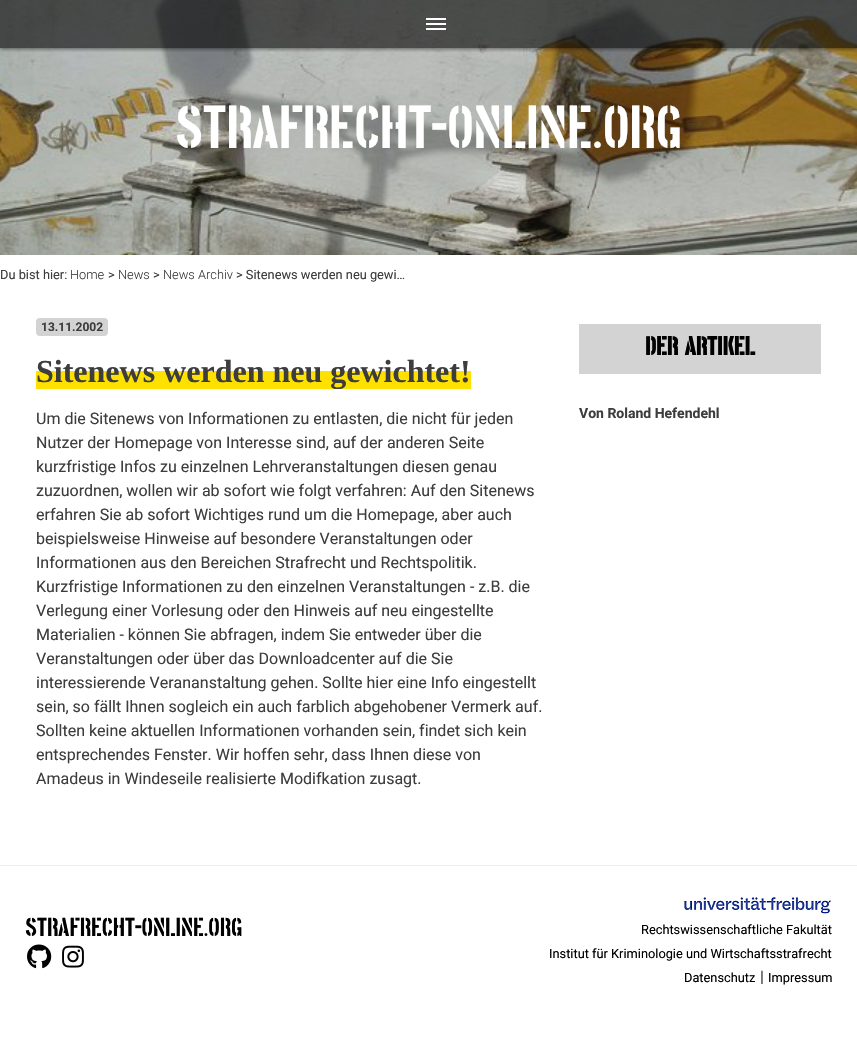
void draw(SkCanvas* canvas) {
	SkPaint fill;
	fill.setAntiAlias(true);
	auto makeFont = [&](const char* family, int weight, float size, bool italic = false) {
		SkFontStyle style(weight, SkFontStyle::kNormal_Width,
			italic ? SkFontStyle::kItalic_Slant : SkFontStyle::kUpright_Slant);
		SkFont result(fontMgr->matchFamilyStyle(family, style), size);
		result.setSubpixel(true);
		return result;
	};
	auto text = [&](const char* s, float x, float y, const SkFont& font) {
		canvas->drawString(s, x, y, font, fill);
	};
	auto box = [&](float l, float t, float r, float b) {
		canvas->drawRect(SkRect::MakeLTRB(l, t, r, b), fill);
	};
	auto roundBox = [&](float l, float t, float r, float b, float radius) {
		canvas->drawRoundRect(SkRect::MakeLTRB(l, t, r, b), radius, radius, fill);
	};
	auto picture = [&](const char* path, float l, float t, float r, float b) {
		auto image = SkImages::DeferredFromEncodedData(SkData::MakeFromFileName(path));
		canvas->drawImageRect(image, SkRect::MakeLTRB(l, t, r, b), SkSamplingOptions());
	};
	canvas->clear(0xFFFFFFFF);
	picture("image0.png", 0, 0, 857, 255);
	canvas->save();
	canvas->clipRect(SkRect::MakeLTRB(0, 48, 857, 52));
	fill.setColor(0x80000000);
	fill.setMaskFilter(SkMaskFilter::MakeBlur(kNormal_SkBlurStyle, 2));
	canvas->drawRect(SkRect::MakeLTRB(0, 1, 857, 49), fill);
	fill.setMaskFilter(nullptr);
	canvas->restore();
	fill.setColor(0x99000000);
	box(0, 0, 857, 48);
	fill.setColor(0xFFFFFFFF);
	box(426, 18, 446, 20);
	box(426, 23, 446, 25);
	box(426, 28, 446, 30);
	fill.setColor(0xFFD3D3D3);
	roundBox(36, 318, 108, 336, 4);
	fill.setColor(0xFFFFE100);
	box(36, 371, 471, 389);
	fill.setColor(0xFFD3D3D3);
	box(579, 324, 821, 374);
	fill.setColor(0xFFEEEEEE);
	box(0, 865, 857, 866);
	picture("image1.png", 27, 944, 52, 969);
	picture("image2.png", 62, 945, 84, 968);
	picture("image3.png", 684, 897, 831, 914);
	auto font1 = makeFont("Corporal", 400, 56);
	fill.setColor(0xFFFFFFFF);
	text("STRAFRECHT-ONLINE.ORG", 175, 148, font1);
	auto font2 = makeFont("Roboto", 400, 12.8f);
	fill.setColor(0xFF3D3D3D);
	text("Du bist hier:", 0, 279, font2);
	auto font3 = makeFont("Roboto", 300, 12.8f);
	text("Home", 70, 279, font3);
	text(">", 108, 279, font2);
	text("News", 118, 279, font3);
	text(">", 153, 279, font2);
	text("News Archiv", 163, 279, font3);
	text("> Sitenews werden neu gewi…", 236, 279, font2);
	auto font4 = makeFont("Roboto", 700, 12);
	text("13.11.2002", 41, 331, font4);
	auto font5 = makeFont("Liberation Serif", 700, 32);
	text("Sitenews werden neu gewichtet!", 36, 382, font5);
	auto font6 = makeFont("Roboto", 400, 16);
	text("Um die Sitenews von Informationen zu entlasten, die nicht für jeden", 36, 424, font6);
	text("Nutzer der Homepage von Interesse sind, auf der anderen Seite", 36, 448, font6);
	text("kurzfristige Infos zu einzelnen Lehrveranstaltungen diesen genau", 36, 472, font6);
	text("zuzuordnen, wollen wir ab sofort wie folgt verfahren: Auf den Sitenews", 36, 496, font6);
	text("erfahren Sie ab sofort Wichtiges rund um die Homepage, aber auch", 36, 520, font6);
	text("beispielsweise Hinweise auf besondere Veranstaltungen oder", 36, 544, font6);
	text("Informationen aus den Bereichen Strafrecht und Rechtspolitik.", 36, 568, font6);
	text("Kurzfristige Informationen zu den einzelnen Veranstaltungen - z.B. die", 36, 592, font6);
	text("Verlegung einer Vorlesung oder den Hinweis auf neu eingestellte", 36, 616, font6);
	text("Materialien - können Sie abfragen, indem Sie entweder über die", 36, 640, font6);
	text("Veranstaltungen oder über das Downloadcenter auf die Sie", 36, 664, font6);
	text("interessierende Verananstaltung gehen. Sollte hier eine Info eingestellt", 36, 688, font6);
	text("sein, so fällt Ihnen sogleich ein auch farblich abgehobener Vermerk auf.", 36, 712, font6);
	text("Sollten keine aktuellen Informationen vorhanden sein, findet sich kein", 36, 736, font6);
	text("entsprechendes Fenster. Wir hoffen sehr, dass Ihnen diese von", 36, 760, font6);
	text("Amadeus in Windeseile realisierte Modifkation zusagt.", 36, 784, font6);
	auto font7 = makeFont("Corporal", 700, 24);
	fill.setColor(0xFF000000);
	text("DER ARTIKEL", 645, 355, font7);
	auto font8 = makeFont("Roboto", 700, 14);
	fill.setColor(0xFF3D3D3D);
	text("Von Roland Hefendehl", 579, 418, font8);
	auto font9 = makeFont("Corporal", 400, 24);
	fill.setColor(0xFF000000);
	text("STRAFRECHT-ONLINE.ORG", 25, 936, font9);
	text("Rechtswissenschaftliche Fakultät", 641, 934, font2);
	text("Institut für Kriminologie und Wirtschaftsstrafrecht", 549, 958, font2);
	text("Datenschutz", 684, 982, font2);
	fill.setColor(0xFF3D3D3D);
	text("|", 760, 982, font6);
	fill.setColor(0xFF000000);
	text("Impressum", 768, 982, font2);
}
